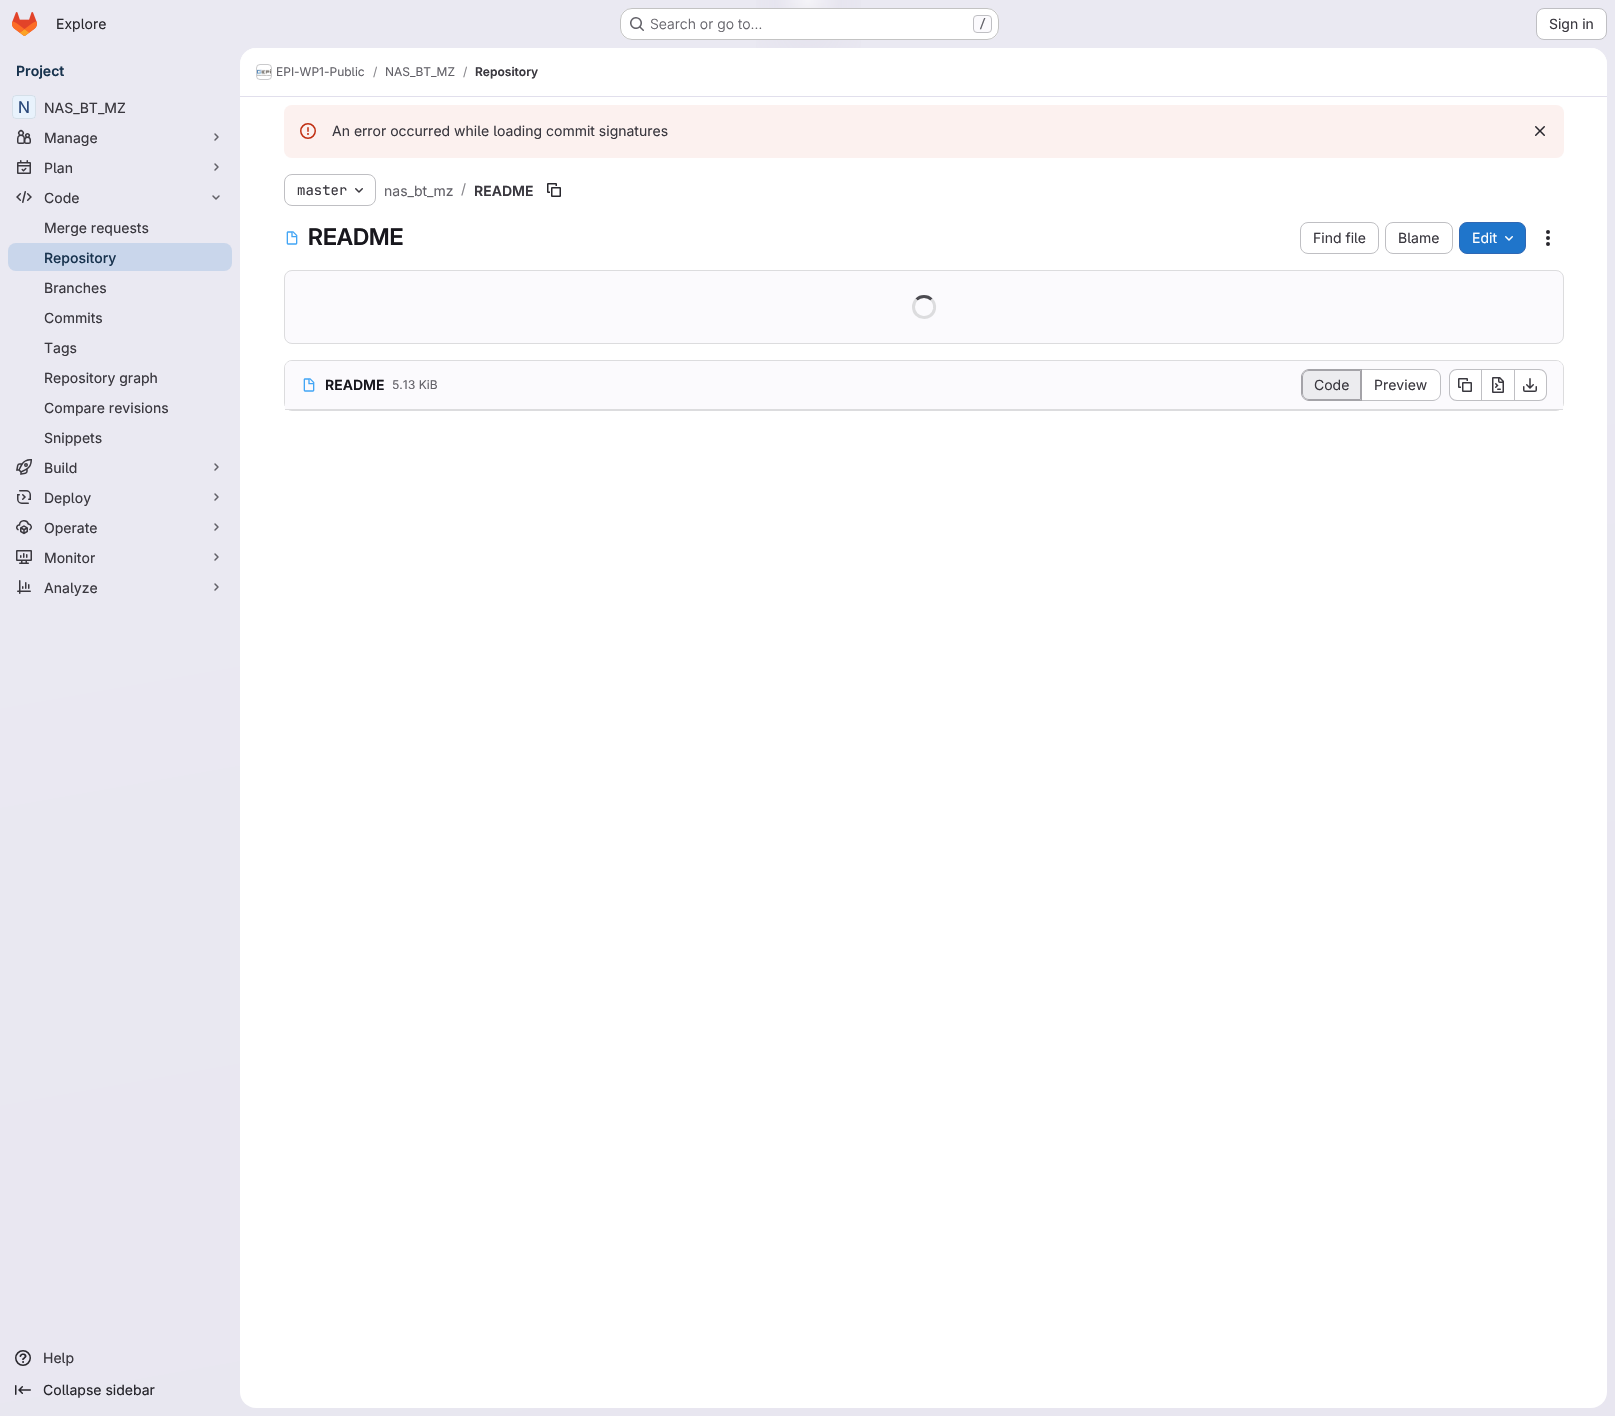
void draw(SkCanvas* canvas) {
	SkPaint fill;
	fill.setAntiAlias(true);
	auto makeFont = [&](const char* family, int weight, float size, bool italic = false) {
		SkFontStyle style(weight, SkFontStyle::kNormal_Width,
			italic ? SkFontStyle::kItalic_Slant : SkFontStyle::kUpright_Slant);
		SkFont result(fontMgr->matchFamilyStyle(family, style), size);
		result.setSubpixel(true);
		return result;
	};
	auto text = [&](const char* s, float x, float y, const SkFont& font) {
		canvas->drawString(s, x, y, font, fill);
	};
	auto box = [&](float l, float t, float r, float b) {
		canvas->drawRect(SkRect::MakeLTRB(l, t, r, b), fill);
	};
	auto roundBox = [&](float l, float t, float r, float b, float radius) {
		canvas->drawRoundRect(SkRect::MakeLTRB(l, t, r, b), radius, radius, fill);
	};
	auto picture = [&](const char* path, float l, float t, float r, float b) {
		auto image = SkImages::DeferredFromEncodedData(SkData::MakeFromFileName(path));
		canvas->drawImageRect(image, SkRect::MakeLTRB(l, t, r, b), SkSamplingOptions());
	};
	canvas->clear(0xFFFFFFFF);
	{
		const SkColor colors[] = {0xFFE8E6F0, 0xFFEAE9F2};
		const float stops[] = {0, 0.7f};
		const SkPoint ends[] = {{953, 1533}, {662, -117}};
		fill.setShader(SkGradientShader::MakeLinear(ends, colors, stops, 2, SkTileMode::kClamp));
		fill.setAlpha(255);
	}
	box(0, 0, 1615, 1416);
	{
		const SkColor colors[] = {0xFFE4E2ED, 0x00E4E2ED};
		const float stops[] = {0, 0.09f};
		SkMatrix m = SkMatrix::Translate(808, 0).preScale(808, 1416);
		fill.setShader(SkGradientShader::MakeRadial({0, 0}, 1, colors, stops, 2, SkTileMode::kClamp, 0, &m));
		fill.setAlpha(255);
	}
	box(756, 0, 861, 48);
	{
		const SkColor colors[] = {0xFFE4E2EC, 0x00E4E2EC};
		const float stops[] = {0, 0.06f};
		SkMatrix m = SkMatrix::Translate(808, 0).preScale(808, 1416);
		fill.setShader(SkGradientShader::MakeRadial({0, 0}, 1, colors, stops, 2, SkTileMode::kClamp, 0, &m));
		fill.setAlpha(255);
	}
	box(790, 3, 824, 15);
	{
		const SkColor colors[] = {0x99FFFFFF, 0x00FFFFFF};
		const float stops[] = {0, 0.02f};
		fill.setShader(SkGradientShader::MakeRadial({808, 0}, 1630, colors, stops, 2, SkTileMode::kClamp));
		fill.setAlpha(255);
	}
	box(777, 0, 839, 8);
	picture("image0.png", 12, 12, 37, 36);
	fill.setShader(nullptr);
	fill.setColor(0xFFFFFFFF);
	roundBox(620, 8, 999, 40, 12);
	fill.setStyle(SkPaint::kStroke_Style);
	fill.setStrokeWidth(1);
	fill.setColor(0x3D050506);
	canvas->drawRoundRect(SkRect::MakeLTRB(620.5f, 8.5f, 998.5f, 39.5f), 11.5f, 11.5f, fill);
	picture("image1.png", 630, 17, 644, 31);
	fill.setStyle(SkPaint::kFill_Style);
	fill.setColor(0xFFFBFAFD);
	canvas->drawRoundRect(SkRect::MakeLTRB(973.5f, 15.5f, 991.5f, 32.5f), 3.5f, 3.5f, fill);
	fill.setStyle(SkPaint::kStroke_Style);
	fill.setColor(0xFFBFBFC3);
	canvas->drawRoundRect(SkRect::MakeLTRB(973.5f, 15.5f, 991.5f, 32.5f), 3.5f, 3.5f, fill);
	fill.setStyle(SkPaint::kFill_Style);
	fill.setColor(0xFFFFFFFF);
	canvas->drawRoundRect(SkRect::MakeLTRB(1536.5f, 8.5f, 1606.5f, 39.5f), 7.5f, 7.5f, fill);
	fill.setStyle(SkPaint::kStroke_Style);
	fill.setColor(0xFFBFBFC3);
	canvas->drawRoundRect(SkRect::MakeLTRB(1536.5f, 8.5f, 1606.5f, 39.5f), 7.5f, 7.5f, fill);
	fill.setStyle(SkPaint::kFill_Style);
	fill.setColor(0xFFFFFFFF);
	roundBox(12, 95, 36, 119, 4);
	fill.setColor(0x3D9DC7F1);
	roundBox(12, 95, 36, 119, 4);
	fill.setStyle(SkPaint::kStroke_Style);
	fill.setColor(0x14050506);
	canvas->drawRoundRect(SkRect::MakeLTRB(12.5f, 95.5f, 35.5f, 118.5f), 3.5f, 3.5f, fill);
	picture("image2.png", 17, 129, 31, 144);
	fill.setStrokeWidth(1.5f);
	fill.setStrokeCap(SkPaint::kRound_Cap);
	fill.setStrokeJoin(SkPaint::kRound_Join);
	fill.setColor(0xFF626168);
	canvas->drawPath(SkPathBuilder().moveTo(215, 134).lineTo(218, 137).lineTo(215, 140).detach(), fill);
	picture("image3.png", 17, 160, 31, 174);
	canvas->drawPath(SkPathBuilder().moveTo(215, 164).lineTo(218, 167).lineTo(215, 170).detach(), fill);
	picture("image4.png", 16, 191, 32, 203);
	canvas->drawPath(SkPathBuilder().moveTo(219, 196).lineTo(216, 199).lineTo(213, 196).detach(), fill);
	fill.setStyle(SkPaint::kFill_Style);
	fill.setColor(0xFFC9D6EB);
	roundBox(8, 243, 232, 271, 8);
	picture("image5.png", 16, 459, 32, 475);
	fill.setStyle(SkPaint::kStroke_Style);
	fill.setColor(0xFF626168);
	canvas->drawPath(SkPathBuilder().moveTo(215, 464).lineTo(218, 467).lineTo(215, 470).detach(), fill);
	picture("image6.png", 17, 490, 31, 504);
	canvas->drawPath(SkPathBuilder().moveTo(215, 494).lineTo(218, 497).lineTo(215, 500).detach(), fill);
	picture("image7.png", 16, 520, 32, 535);
	canvas->drawPath(SkPathBuilder().moveTo(215, 524).lineTo(218, 527).lineTo(215, 530).detach(), fill);
	picture("image8.png", 16, 550, 32, 564);
	canvas->drawPath(SkPathBuilder().moveTo(215, 554).lineTo(218, 557).lineTo(215, 560).detach(), fill);
	picture("image9.png", 17, 580, 31, 594);
	canvas->drawPath(SkPathBuilder().moveTo(215, 584).lineTo(218, 587).lineTo(215, 590).detach(), fill);
	picture("image10.png", 15, 1350, 31, 1366);
	picture("image11.png", 15, 1385, 31, 1395);
	fill.setStyle(SkPaint::kFill_Style);
	fill.setColor(0xFFFFFFFF);
	roundBox(240, 48, 1607, 1408, 16);
	canvas->drawPath(SkPathBuilder().moveTo(256, 48).lineTo(1591, 48).cubicTo(1600, 48, 1607, 55, 1607, 64).lineTo(1607, 97).lineTo(240, 97).lineTo(240, 64).cubicTo(240, 55, 247, 48, 256, 48).close().detach(), fill);
	fill.setColor(0xFFE1DFEC);
	box(240, 96, 1607, 97);
	fill.setStyle(SkPaint::kStroke_Style);
	fill.setStrokeWidth(1);
	fill.setStrokeCap(SkPaint::kButt_Cap);
	fill.setStrokeJoin(SkPaint::kMiter_Join);
	fill.setColor(0xFFDCDCDE);
	canvas->drawRoundRect(SkRect::MakeLTRB(256.5f, 64.5f, 271.5f, 79.5f), 3.5f, 3.5f, fill);
	picture("image12.png", 257, 69, 271, 76);
	fill.setColor(0x14050506);
	canvas->drawRoundRect(SkRect::MakeLTRB(256.5f, 64.5f, 271.5f, 79.5f), 3.5f, 3.5f, fill);
	fill.setStyle(SkPaint::kFill_Style);
	fill.setColor(0xFFFCF1EF);
	roundBox(284, 105, 1564, 158, 8);
	picture("image13.png", 300, 123, 316, 139);
	picture("image14.png", 1535, 126, 1545, 136);
	fill.setStyle(SkPaint::kStroke_Style);
	fill.setColor(0xFFBFBFC3);
	canvas->drawRoundRect(SkRect::MakeLTRB(284.5f, 174.5f, 375.5f, 205.5f), 7.5f, 7.5f, fill);
	picture("image15.png", 355, 188, 363, 193);
	picture("image16.png", 547, 183, 561, 197);
	picture("image17.png", 286, 231, 298, 245);
	canvas->drawRoundRect(SkRect::MakeLTRB(1300.5f, 222.5f, 1378.5f, 253.5f), 7.5f, 7.5f, fill);
	canvas->drawRoundRect(SkRect::MakeLTRB(1385.5f, 222.5f, 1452.5f, 253.5f), 7.5f, 7.5f, fill);
	fill.setStyle(SkPaint::kFill_Style);
	fill.setColor(0xFF1F75CB);
	canvas->drawRoundRect(SkRect::MakeLTRB(1459.5f, 222.5f, 1525.5f, 253.5f), 7.5f, 7.5f, fill);
	fill.setStyle(SkPaint::kStroke_Style);
	fill.setColor(0xFF2F68B4);
	canvas->drawRoundRect(SkRect::MakeLTRB(1459.5f, 222.5f, 1525.5f, 253.5f), 7.5f, 7.5f, fill);
	picture("image18.png", 1505, 236, 1513, 241);
	picture("image19.png", 1546, 230, 1550, 246);
	fill.setStyle(SkPaint::kFill_Style);
	fill.setColor(0xFFFBFAFD);
	canvas->drawRoundRect(SkRect::MakeLTRB(284.5f, 270.5f, 1563.5f, 343.5f), 7.5f, 7.5f, fill);
	fill.setStyle(SkPaint::kStroke_Style);
	fill.setColor(0xFFDCDCDE);
	canvas->drawRoundRect(SkRect::MakeLTRB(284.5f, 270.5f, 1563.5f, 343.5f), 7.5f, 7.5f, fill);
	fill.setStrokeWidth(3);
	fill.setColor(0xFF4C4B51);
	canvas->drawPath(SkPathBuilder().moveTo(916.5f, 299.5f).cubicTo(920.5f, 295.5f, 927.5f, 295.5f, 931.5f, 299.5f).detach(), fill);
	fill.setColor(0xFFDCDCDE);
	canvas->drawPath(SkPathBuilder().moveTo(931.5f, 299.5f).cubicTo(934, 302, 935, 305.5f, 934.5f, 309).cubicTo(932, 321.5f, 913.5f, 319.5f, 913.5f, 307).cubicTo(913.5f, 304, 914.5f, 301.5f, 916.5f, 299.5f).detach(), fill);
	fill.setStrokeWidth(1);
	canvas->drawRoundRect(SkRect::MakeLTRB(284.5f, 360.5f, 1563.5f, 410.5f), 7.5f, 7.5f, fill);
	fill.setStyle(SkPaint::kFill_Style);
	fill.setColor(0xFFFBFAFD);
	canvas->drawPath(SkPathBuilder().moveTo(292, 361).lineTo(1556, 361).cubicTo(1560, 361, 1563, 364, 1563, 368).lineTo(1563, 410).lineTo(285, 410).lineTo(285, 368).cubicTo(285, 364, 288, 361, 292, 361).close().detach(), fill);
	fill.setColor(0xFFDCDCDE);
	box(285, 409, 1563, 410);
	picture("image20.png", 303, 378, 315, 392);
	fill.setColor(0xFFECECEF);
	canvas->drawPath(SkPathBuilder().moveTo(1309, 370.5f).lineTo(1360.5f, 370.5f).lineTo(1360.5f, 399.5f).lineTo(1309, 399.5f).cubicTo(1305.5f, 399.5f, 1302.5f, 396.5f, 1302.5f, 393).lineTo(1302.5f, 377).cubicTo(1302.5f, 373.5f, 1305.5f, 370.5f, 1309, 370.5f).close().detach(), fill);
	fill.setStyle(SkPaint::kStroke_Style);
	fill.setColor(0xFFA4A3A8);
	canvas->drawPath(SkPathBuilder().moveTo(1309, 370.5f).lineTo(1360.5f, 370.5f).lineTo(1360.5f, 399.5f).lineTo(1309, 399.5f).cubicTo(1305.5f, 399.5f, 1302.5f, 396.5f, 1302.5f, 393).lineTo(1302.5f, 377).cubicTo(1302.5f, 373.5f, 1305.5f, 370.5f, 1309, 370.5f).close().detach(), fill);
	fill.setStyle(SkPaint::kFill_Style);
	canvas->drawPath(SkPathBuilder(SkPathFillType::kEvenOdd).moveTo(1309, 369).lineTo(1361, 369).lineTo(1361, 401).lineTo(1309, 401).cubicTo(1305, 401, 1301, 397, 1301, 393).lineTo(1301, 377).cubicTo(1301, 373, 1305, 369, 1309, 369).close().moveTo(1309, 370).lineTo(1361, 370).lineTo(1361, 400).lineTo(1309, 400).cubicTo(1305, 400, 1302, 397, 1302, 393).lineTo(1302, 377).cubicTo(1302, 373, 1305, 370, 1309, 370).close().detach(), fill);
	fill.setColor(0xFFFFFFFF);
	canvas->drawPath(SkPathBuilder().moveTo(1362, 370).lineTo(1433, 370).cubicTo(1437, 370, 1440, 373, 1440, 377).lineTo(1440, 393).cubicTo(1440, 397, 1437, 400, 1433, 400).lineTo(1362, 400).close().detach(), fill);
	fill.setColor(0xFFBFBFC3);
	canvas->drawPath(SkPathBuilder(SkPathFillType::kEvenOdd).moveTo(1362, 369).lineTo(1433, 369).cubicTo(1437, 369, 1441, 373, 1441, 377).lineTo(1441, 393).cubicTo(1441, 397, 1437, 401, 1433, 401).lineTo(1362, 401).close().moveTo(1362, 370).lineTo(1433, 370).cubicTo(1437, 370, 1440, 373, 1440, 377).lineTo(1440, 393).cubicTo(1440, 397, 1437, 400, 1433, 400).lineTo(1362, 400).close().detach(), fill);
	fill.setColor(0xFFA4A3A8);
	box(1361, 369, 1362, 401);
	fill.setColor(0xFFFFFFFF);
	canvas->drawPath(SkPathBuilder().moveTo(1457, 370).lineTo(1481, 370).lineTo(1481, 400).lineTo(1457, 400).cubicTo(1453, 400, 1450, 397, 1450, 393).lineTo(1450, 377).cubicTo(1450, 373, 1453, 370, 1457, 370).close().detach(), fill);
	fill.setColor(0xFFBFBFC3);
	canvas->drawPath(SkPathBuilder(SkPathFillType::kEvenOdd).moveTo(1457, 369).lineTo(1481, 369).lineTo(1481, 401).lineTo(1457, 401).cubicTo(1452.5f, 401, 1449, 397.5f, 1449, 393).lineTo(1449, 377).cubicTo(1449, 372.5f, 1452.5f, 369, 1457, 369).close().moveTo(1457, 370).lineTo(1481, 370).lineTo(1481, 400).lineTo(1457, 400).cubicTo(1453, 400, 1450, 397, 1450, 393).lineTo(1450, 377).cubicTo(1450, 373, 1453, 370, 1457, 370).close().detach(), fill);
	picture("image21.png", 1458, 378, 1472, 392);
	fill.setColor(0xFFFFFFFF);
	box(1482, 370, 1514, 400);
	fill.setColor(0xFFBFBFC3);
	box(1482, 369, 1514, 370);
	box(1482, 400, 1514, 401);
	box(1481, 369, 1482, 401);
	picture("image22.png", 1492, 377, 1504, 393);
	fill.setColor(0xFFFFFFFF);
	canvas->drawPath(SkPathBuilder().moveTo(1515, 370).lineTo(1539, 370).cubicTo(1543, 370, 1546, 373, 1546, 377).lineTo(1546, 393).cubicTo(1546, 397, 1543, 400, 1539, 400).lineTo(1515, 400).close().detach(), fill);
	fill.setColor(0xFFBFBFC3);
	canvas->drawPath(SkPathBuilder(SkPathFillType::kEvenOdd).moveTo(1515, 369).lineTo(1539, 369).cubicTo(1543.5f, 369, 1547, 372.5f, 1547, 377).lineTo(1547, 393).cubicTo(1547, 397.5f, 1543.5f, 401, 1539, 401).lineTo(1515, 401).close().moveTo(1515, 370).lineTo(1539, 370).cubicTo(1543, 370, 1546, 373, 1546, 377).lineTo(1546, 393).cubicTo(1546, 397, 1543, 400, 1539, 400).lineTo(1515, 400).close().detach(), fill);
	box(1514, 369, 1515, 401);
	picture("image23.png", 1523, 378, 1537, 392);
	auto font1 = makeFont("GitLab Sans", 400, 14);
	fill.setColor(0xFF28272D);
	text("Explore", 56, 29, font1);
	auto font2 = makeFont("GitLab Sans", 300, 14);
	fill.setColor(0xFF626168);
	text("Search or go to…", 650, 29, font2);
	auto font3 = makeFont("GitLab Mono", 500, 12);
	text("/", 979, 28, font3);
	fill.setColor(0xFF3A383F);
	text("Sign in", 1549, 29, font1);
	auto font4 = makeFont("GitLab Sans", 600, 14);
	fill.setColor(0xFF18334E);
	text("Project", 16, 76, font4);
	auto font5 = makeFont("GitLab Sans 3", 400, 16);
	fill.setColor(0xFF284779);
	text("N", 18, 113, font5);
	auto font6 = makeFont("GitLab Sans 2", 400, 14);
	fill.setColor(0xFF3A383F);
	text("NAS_BT_MZ", 44, 113, font6);
	text("Manage", 44, 143, font6);
	text("Plan", 44, 173, font6);
	text("Code", 44, 203, font6);
	text("Merge requests", 44, 233, font6);
	auto font7 = makeFont("GitLab Sans", 500, 14);
	fill.setColor(0xFF18334E);
	text("Repository", 44, 263, font7);
	fill.setColor(0xFF3A383F);
	text("Branches", 44, 293, font6);
	text("Commits", 44, 323, font6);
	text("Tags", 44, 353, font6);
	text("Repository graph", 44, 383, font6);
	text("Compare revisions", 44, 413, font6);
	text("Snippets", 44, 443, font6);
	text("Build", 44, 473, font6);
	text("Deploy", 44, 503, font6);
	text("Operate", 44, 533, font6);
	text("Monitor", 44, 563, font6);
	text("Analyze", 44, 593, font6);
	text("Help", 43, 1363, font6);
	fill.setColor(0xFF28272D);
	text("Collapse sidebar", 43, 1395, font6);
	auto font8 = makeFont("GitLab Sans", 400, 12);
	fill.setColor(0xFF626168);
	text("EPI-WP1-Public", 276, 76, font8);
	fill.setColor(0xFF89888D);
	text("/", 373, 76, font8);
	fill.setColor(0xFF626168);
	text("NAS_BT_MZ", 385, 76, font8);
	fill.setColor(0xFF89888D);
	text("/", 463, 76, font8);
	auto font9 = makeFont("GitLab Sans", 600, 12);
	fill.setColor(0xFF3A383F);
	text("Repository", 475, 76, font9);
	text("An error occurred while loading commit signatures", 332, 136, font1);
	auto font10 = makeFont("GitLab Mono", 400, 14);
	text("master", 297, 195, font10);
	fill.setColor(0xFF626168);
	text("nas_bt_mz", 384, 196, font1);
	fill.setColor(0xFF89888D);
	text("/", 461, 194, font1);
	fill.setColor(0xFF3A383F);
	text("README", 474, 196, font4);
	auto font11 = makeFont("GitLab Sans 2", 600, 23);
	fill.setColor(0xFF18171D);
	text("README", 308, 245, font11);
	fill.setColor(0xFF3A383F);
	text("Find file", 1313, 243, font1);
	text("Blame", 1398, 243, font1);
	fill.setColor(0xFFFFFFFF);
	text("Edit", 1472, 243, font1);
	fill.setColor(0xFF18171D);
	text("README", 325, 390, font4);
	fill.setColor(0xFF626168);
	text("5.13 KiB", 392, 389, font8);
	fill.setColor(0xFF3A383F);
	text("Code", 1314, 390, font1);
	text("Preview", 1374, 390, font1);
}
